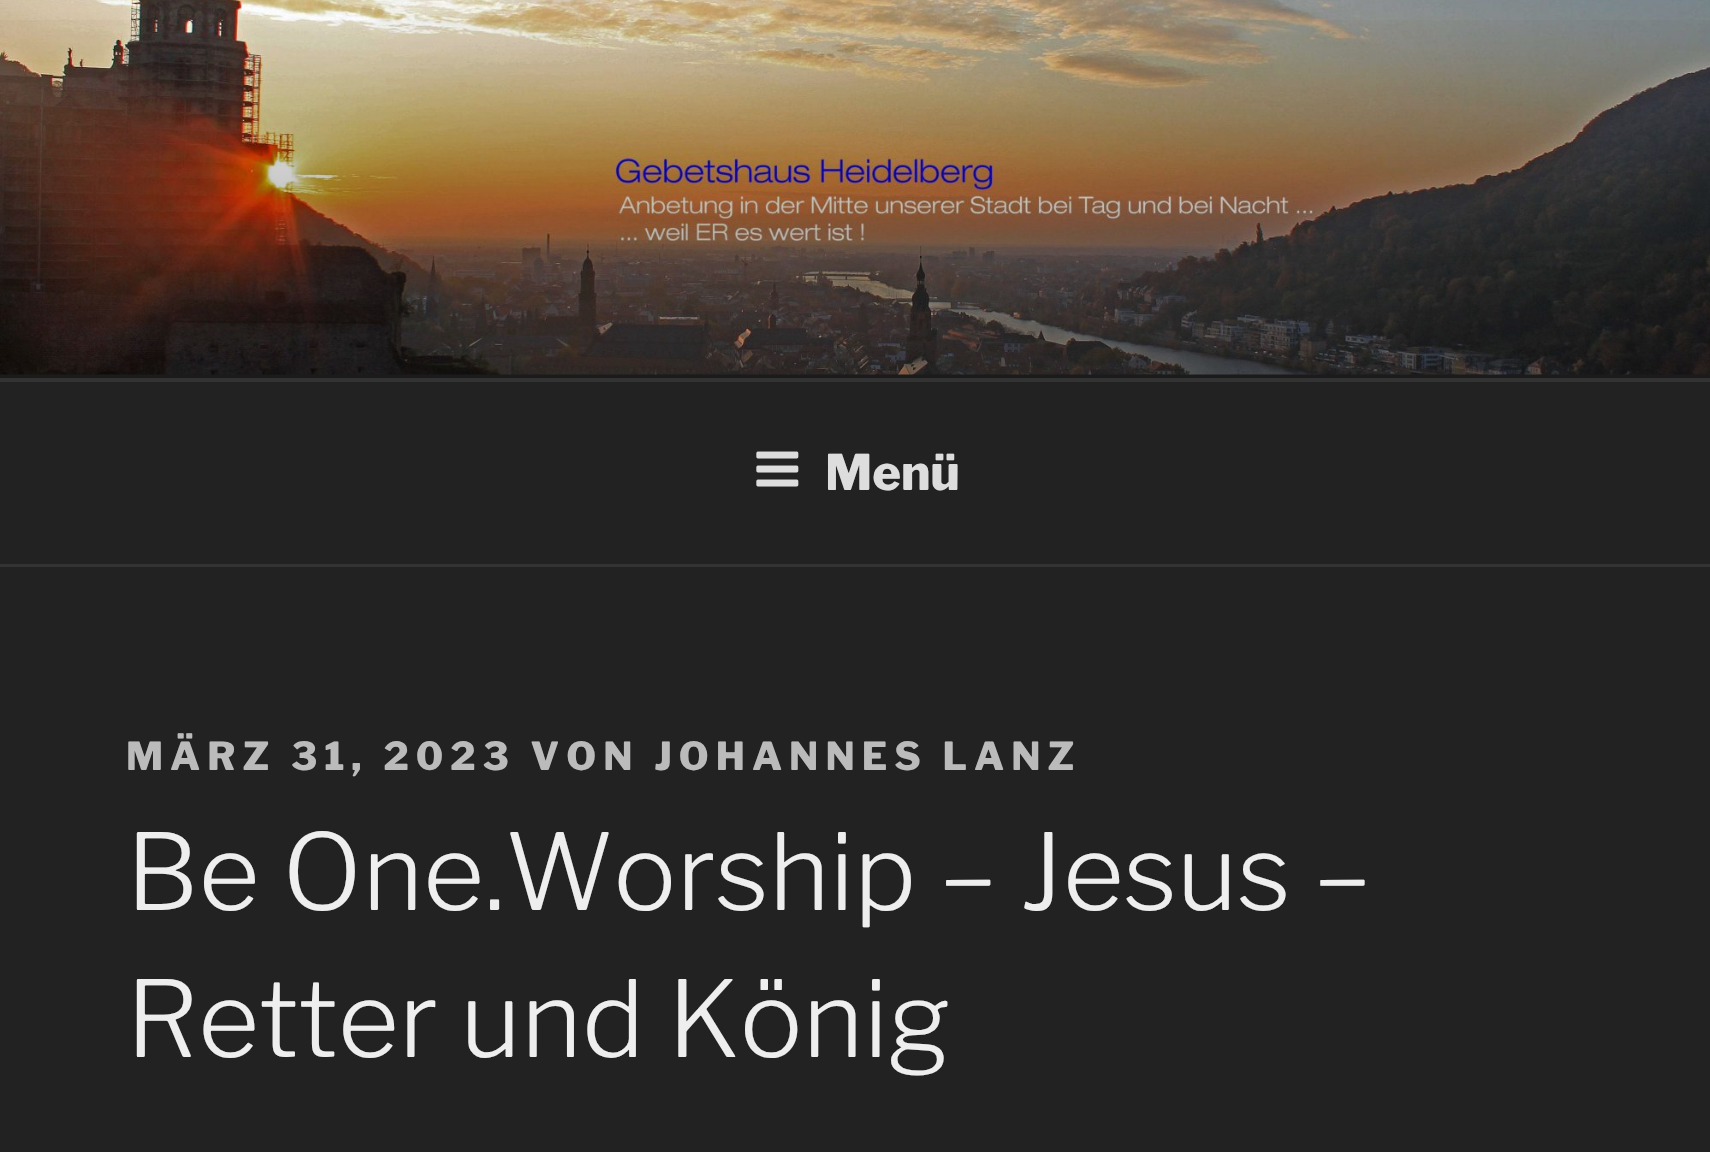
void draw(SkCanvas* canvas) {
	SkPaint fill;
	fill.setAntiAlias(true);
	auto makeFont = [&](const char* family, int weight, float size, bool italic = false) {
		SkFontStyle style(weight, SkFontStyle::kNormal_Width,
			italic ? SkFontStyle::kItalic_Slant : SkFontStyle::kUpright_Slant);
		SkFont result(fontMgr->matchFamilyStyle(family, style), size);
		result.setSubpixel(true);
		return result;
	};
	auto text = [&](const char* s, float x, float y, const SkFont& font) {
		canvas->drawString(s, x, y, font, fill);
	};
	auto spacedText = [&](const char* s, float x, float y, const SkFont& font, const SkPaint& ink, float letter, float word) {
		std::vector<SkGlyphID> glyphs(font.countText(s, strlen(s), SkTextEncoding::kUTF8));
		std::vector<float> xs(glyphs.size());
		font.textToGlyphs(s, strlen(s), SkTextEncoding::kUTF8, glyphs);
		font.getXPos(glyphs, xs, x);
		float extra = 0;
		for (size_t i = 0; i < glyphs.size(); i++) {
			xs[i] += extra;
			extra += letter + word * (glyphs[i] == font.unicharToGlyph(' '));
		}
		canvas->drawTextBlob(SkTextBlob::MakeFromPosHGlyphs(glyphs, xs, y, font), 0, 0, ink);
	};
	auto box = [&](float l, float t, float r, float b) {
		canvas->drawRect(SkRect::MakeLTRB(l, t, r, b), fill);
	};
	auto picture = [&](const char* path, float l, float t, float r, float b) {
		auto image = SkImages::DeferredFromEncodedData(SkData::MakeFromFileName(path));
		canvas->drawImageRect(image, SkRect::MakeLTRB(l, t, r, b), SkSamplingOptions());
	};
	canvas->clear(0xFF262626);
	picture("image0.png", 0, 0, 1710, 375);
	{
		const SkColor colors[] = {0x00000000, 0x4D000000, 0x4D000000};
		const float stops[] = {0, 0.75f, 1};
		const SkPoint ends[] = {{856, 0}, {856, 378}};
		fill.setShader(SkGradientShader::MakeLinear(ends, colors, stops, 3, SkTileMode::kClamp));
		fill.setAlpha(255);
	}
	box(0, 20, 1710, 378);
	fill.setShader(nullptr);
	fill.setColor(0xFF222222);
	box(0, 382, 1710, 564);
	fill.setColor(0xFF333333);
	box(0, 378, 1710, 382);
	box(0, 564, 1710, 567);
	picture("image1.png", 756, 451, 799, 487);
	fill.setColor(0xFF222222);
	box(0, 567, 1710, 1152);
	auto font1 = makeFont("Libre Franklin", 100, 49);
	fill.setColor(0xFFDDDDDD);
	text("Menü", 825, 490, font1);
	auto font2 = makeFont("Libre Franklin", 100, 38.5f);
	fill.setColor(0xFFBBBBBB);
	spacedText("MÄRZ 31, 2023 VON JOHANNES LANZ", 126, 770, font2, fill, 7, 0);
	auto font3 = makeFont("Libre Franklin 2", 100, 105);
	fill.setColor(0xFFEEEEEE);
	text("Be One.Worship – Jesus –", 126, 910, font3);
	text("Retter und König", 126, 1057, font3);
}
